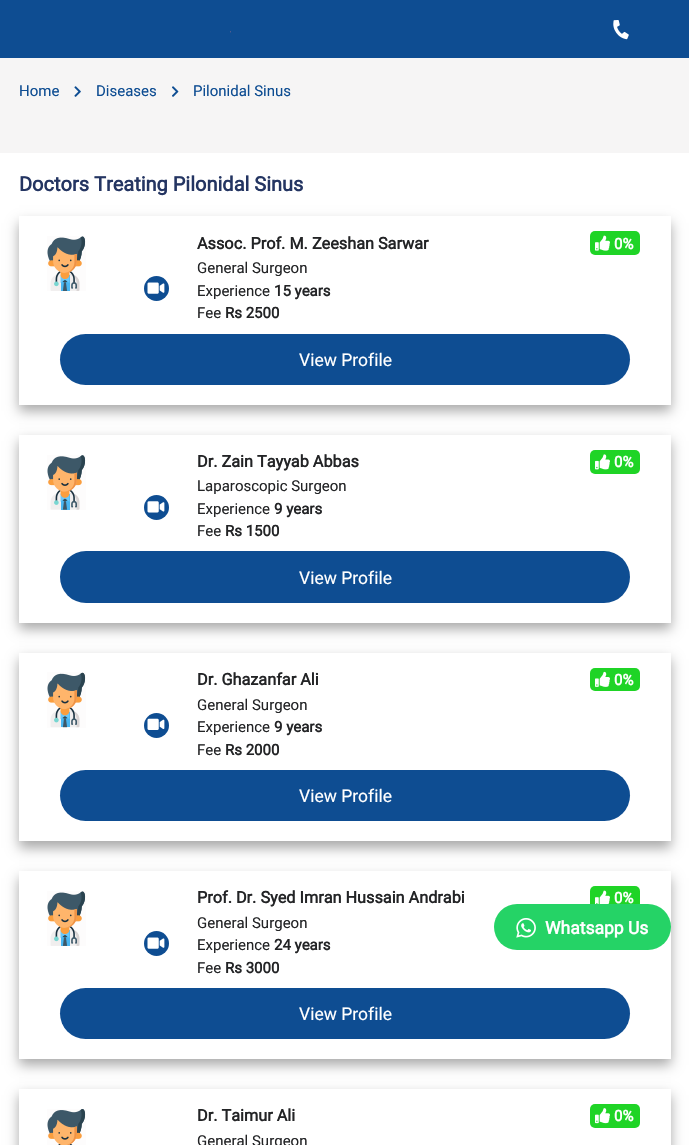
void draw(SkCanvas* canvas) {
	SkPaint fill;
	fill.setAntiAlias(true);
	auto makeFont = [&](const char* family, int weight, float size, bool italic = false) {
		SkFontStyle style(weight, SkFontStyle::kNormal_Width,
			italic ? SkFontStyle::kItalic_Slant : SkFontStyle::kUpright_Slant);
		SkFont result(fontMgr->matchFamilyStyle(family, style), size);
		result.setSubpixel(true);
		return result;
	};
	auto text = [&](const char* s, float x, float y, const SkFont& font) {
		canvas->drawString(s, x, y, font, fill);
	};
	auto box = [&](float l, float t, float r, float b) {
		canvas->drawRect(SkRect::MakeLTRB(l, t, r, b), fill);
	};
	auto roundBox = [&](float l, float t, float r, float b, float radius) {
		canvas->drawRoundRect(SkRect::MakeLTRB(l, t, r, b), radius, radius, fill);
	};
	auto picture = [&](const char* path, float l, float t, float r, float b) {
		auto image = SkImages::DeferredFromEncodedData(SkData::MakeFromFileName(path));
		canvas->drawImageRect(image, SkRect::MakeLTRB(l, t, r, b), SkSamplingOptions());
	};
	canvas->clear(0xFFF6F5F5);
	fill.setColor(0xFF0E4D92);
	box(0, 0, 689, 58);
	picture("image0.png", 230, 31, 231, 33);
	picture("image1.png", 613, 20, 629, 40);
	picture("image2.png", 74, 86, 81, 97);
	picture("image3.png", 172, 86, 179, 97);
	fill.setColor(0xFFFFFFFF);
	box(0, 153, 689, 1145);
	fill.setColor(0x57000000);
	fill.setMaskFilter(SkMaskFilter::MakeBlur(kNormal_SkBlurStyle, 6));
	canvas->drawRect(SkRect::MakeLTRB(19, 223, 671, 411), fill);
	fill.setMaskFilter(nullptr);
	fill.setColor(0xFFFFFFFF);
	box(19, 216, 671, 405);
	picture("image4.png", 47, 236, 86, 291);
	fill.setColor(0xFF0E4D92);
	canvas->drawCircle(156.5f, 288.5f, 12.5f, fill);
	picture("image5.png", 147, 282, 165, 294);
	fill.setColor(0xFF1FD426);
	roundBox(590, 231, 640, 255, 5);
	picture("image6.png", 595, 235, 610, 251);
	fill.setColor(0xFF0E4D92);
	roundBox(60, 334, 630, 385, 25.5f);
	fill.setColor(0x57000000);
	fill.setMaskFilter(SkMaskFilter::MakeBlur(kNormal_SkBlurStyle, 6));
	canvas->drawRect(SkRect::MakeLTRB(19, 441, 671, 629), fill);
	fill.setMaskFilter(nullptr);
	fill.setColor(0xFFFFFFFF);
	box(19, 435, 671, 623);
	picture("image7.png", 47, 455, 86, 510);
	fill.setColor(0xFF0E4D92);
	canvas->drawCircle(156.5f, 507.5f, 12.5f, fill);
	picture("image8.png", 147, 501, 165, 513);
	fill.setColor(0xFF1FD426);
	roundBox(590, 450, 640, 474, 5);
	picture("image9.png", 595, 454, 610, 470);
	fill.setColor(0xFF0E4D92);
	roundBox(60, 551, 630, 603, 26);
	canvas->save();
	canvas->clipPath(SkPathBuilder(SkPathFillType::kEvenOdd).moveTo(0, 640).lineTo(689, 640).lineTo(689, 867).lineTo(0, 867).close().moveTo(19, 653).lineTo(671, 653).lineTo(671, 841).lineTo(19, 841).close().detach(), true);
	fill.setColor(0x57000000);
	fill.setMaskFilter(SkMaskFilter::MakeBlur(kNormal_SkBlurStyle, 6));
	canvas->drawRect(SkRect::MakeLTRB(19, 659, 671, 848), fill);
	fill.setMaskFilter(nullptr);
	canvas->restore();
	picture("image10.png", 47, 672, 86, 728);
	fill.setColor(0xFF0E4D92);
	canvas->drawCircle(156.5f, 725.5f, 12.5f, fill);
	picture("image11.png", 147, 718, 165, 730);
	fill.setColor(0xFF1FD426);
	roundBox(590, 668, 640, 691, 5);
	picture("image12.png", 595, 671, 610, 687);
	fill.setColor(0xFF0E4D92);
	roundBox(60, 770, 630, 821, 25.5f);
	fill.setColor(0x57000000);
	fill.setMaskFilter(SkMaskFilter::MakeBlur(kNormal_SkBlurStyle, 6));
	canvas->drawRect(SkRect::MakeLTRB(19, 878, 671, 1065), fill);
	fill.setMaskFilter(nullptr);
	fill.setColor(0xFFFFFFFF);
	box(19, 871, 671, 1059);
	picture("image4.png", 47, 891, 86, 946);
	fill.setColor(0xFF0E4D92);
	canvas->drawCircle(156.5f, 943.5f, 12.5f, fill);
	picture("image5.png", 147, 937, 165, 949);
	fill.setColor(0xFF1FD426);
	roundBox(590, 886, 640, 910, 5);
	picture("image13.png", 595, 890, 610, 904);
	fill.setColor(0xFF0E4D92);
	roundBox(60, 988, 630, 1039, 25.5f);
	canvas->save();
	canvas->clipPath(SkPathBuilder(SkPathFillType::kEvenOdd).moveTo(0, 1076).lineTo(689, 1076).lineTo(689, 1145).lineTo(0, 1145).close().moveTo(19, 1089).lineTo(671, 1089).lineTo(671, 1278).lineTo(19, 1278).close().detach(), true);
	fill.setColor(0x57000000);
	fill.setMaskFilter(SkMaskFilter::MakeBlur(kNormal_SkBlurStyle, 6));
	canvas->drawRect(SkRect::MakeLTRB(19, 1095, 671, 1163), fill);
	fill.setMaskFilter(nullptr);
	canvas->restore();
	picture("image14.png", 47, 1109, 86, 1145);
	fill.setColor(0xFF1FD426);
	roundBox(590, 1104, 640, 1128, 5);
	picture("image15.png", 595, 1108, 610, 1124);
	fill.setColor(0xFF25D366);
	roundBox(494, 904, 671, 950, 23);
	picture("image16.png", 516, 918, 536, 938);
	auto font1 = makeFont("Roboto", 400, 15);
	fill.setColor(0xFF0E4D92);
	text("Home", 19, 96, font1);
	text("Diseases", 96, 96, font1);
	text("Pilonidal Sinus", 193, 96, font1);
	auto font2 = makeFont("Roboto", 700, 20);
	fill.setColor(0xFF243562);
	text("Doctors Treating Pilonidal Sinus", 19, 191, font2);
	auto font3 = makeFont("Roboto", 700, 16.25f);
	fill.setColor(0xFF232426);
	text("Assoc. Prof. M. Zeeshan Sarwar", 197, 249, font3);
	auto font4 = makeFont("Roboto", 700, 15);
	fill.setColor(0xFFFFFFFF);
	text("0%", 614, 249, font4);
	fill.setColor(0xFF232426);
	text("General Surgeon", 197, 273, font1);
	text("Experience", 197, 296, font1);
	text("15 years", 274, 296, font4);
	text("Fee", 197, 318, font1);
	text("Rs 2500", 225, 318, font4);
	auto font5 = makeFont("Roboto", 400, 17.5f);
	fill.setColor(0xFFFFFFFF);
	text("View Profile", 299, 366, font5);
	fill.setColor(0xFF232426);
	text("Dr. Zain Tayyab Abbas", 197, 467, font3);
	fill.setColor(0xFFFFFFFF);
	text("0%", 614, 467, font4);
	fill.setColor(0xFF232426);
	text("Laparoscopic Surgeon", 197, 491, font1);
	text("Experience", 197, 514, font1);
	text("9 years", 274, 514, font4);
	text("Fee", 197, 536, font1);
	text("Rs 1500", 225, 536, font4);
	fill.setColor(0xFFFFFFFF);
	text("View Profile", 299, 584, font5);
	fill.setColor(0xFF232426);
	text("Dr. Ghazanfar Ali", 197, 685, font3);
	fill.setColor(0xFFFFFFFF);
	text("0%", 614, 685, font4);
	fill.setColor(0xFF232426);
	text("General Surgeon", 197, 710, font1);
	text("Experience", 197, 732, font1);
	text("9 years", 274, 732, font4);
	text("Fee", 197, 755, font1);
	text("Rs 2000", 225, 755, font4);
	fill.setColor(0xFFFFFFFF);
	text("View Profile", 299, 802, font5);
	fill.setColor(0xFF232426);
	text("Prof. Dr. Syed Imran Hussain Andrabi", 197, 903, font3);
	fill.setColor(0xFFFFFFFF);
	text("0%", 614, 903, font4);
	fill.setColor(0xFF232426);
	text("General Surgeon", 197, 928, font1);
	text("Experience", 197, 950, font1);
	text("24 years", 274, 950, font4);
	text("Fee", 197, 973, font1);
	text("Rs 3000", 225, 973, font4);
	fill.setColor(0xFFFFFFFF);
	text("View Profile", 299, 1020, font5);
	fill.setColor(0xFF232426);
	text("Dr. Taimur Ali", 197, 1121, font3);
	fill.setColor(0xFFFFFFFF);
	text("0%", 614, 1121, font4);
	fill.setColor(0xFF232426);
	text("General Surgeon", 197, 1146, font1);
	auto font6 = makeFont("Roboto", 700, 17.5f);
	fill.setColor(0xFFFFFFFF);
	text("Whatsapp Us", 545, 934, font6);
}
